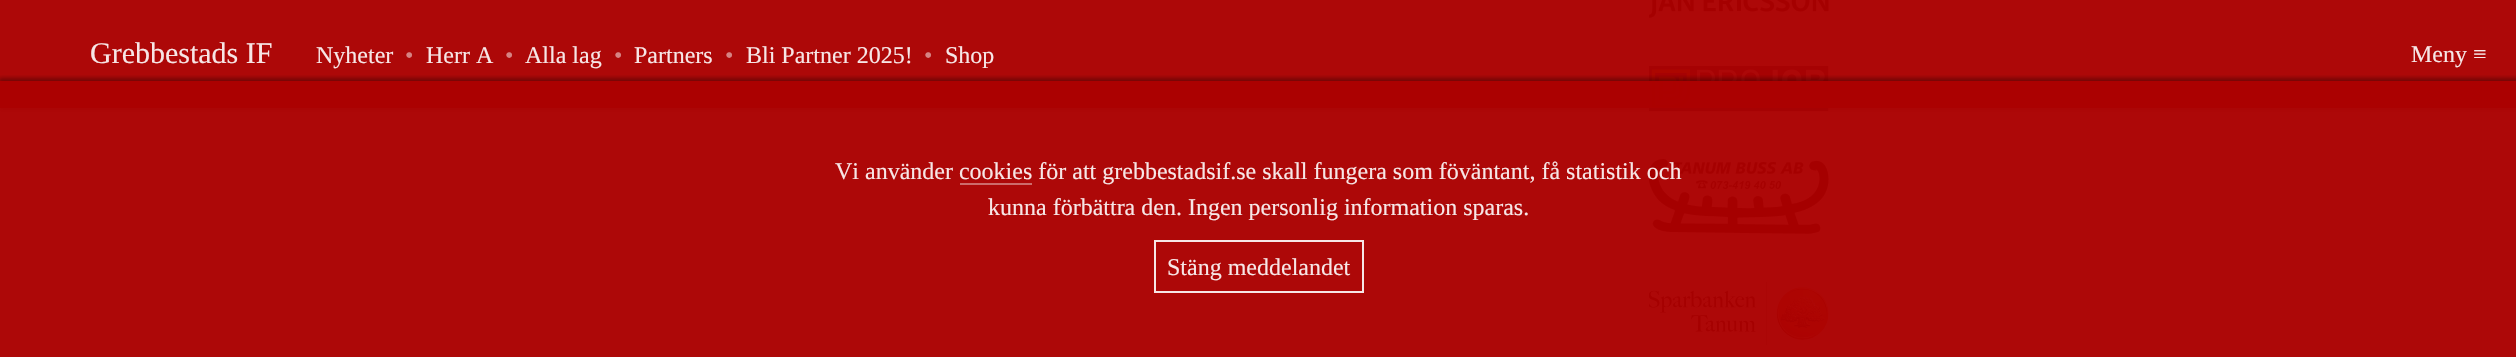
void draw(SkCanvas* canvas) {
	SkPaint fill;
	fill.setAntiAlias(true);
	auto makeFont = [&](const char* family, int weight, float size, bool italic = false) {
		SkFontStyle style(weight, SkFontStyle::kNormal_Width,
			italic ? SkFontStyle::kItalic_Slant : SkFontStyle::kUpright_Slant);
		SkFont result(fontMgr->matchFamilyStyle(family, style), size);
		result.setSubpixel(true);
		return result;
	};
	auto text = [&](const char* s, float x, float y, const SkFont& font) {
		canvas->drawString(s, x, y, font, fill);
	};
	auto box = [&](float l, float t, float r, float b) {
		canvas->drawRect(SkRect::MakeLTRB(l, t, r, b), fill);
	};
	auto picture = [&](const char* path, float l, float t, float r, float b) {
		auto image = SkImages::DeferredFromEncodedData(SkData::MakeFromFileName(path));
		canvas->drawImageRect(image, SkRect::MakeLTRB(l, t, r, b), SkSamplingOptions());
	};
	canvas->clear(0xFFFFFFFF);
	fill.setColor(0xFFAD0808);
	box(0, 0, 2516, 108);
	picture("image0.png", 1649, 0, 1829, 18);
	picture("image1.png", 1649, 66, 1829, 111);
	picture("image2.png", 1649, 159, 1829, 234);
	picture("image3.png", 1649, 282, 1829, 345);
	canvas->save();
	canvas->clipRect(SkRect::MakeLTRB(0, 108, 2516, 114));
	fill.setColor(0x54000000);
	fill.setMaskFilter(SkMaskFilter::MakeBlur(kNormal_SkBlurStyle, 2));
	canvas->drawRect(SkRect::MakeLTRB(-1, 0, 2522, 111), fill);
	fill.setMaskFilter(nullptr);
	canvas->restore();
	canvas->save();
	canvas->clipRect(SkRect::MakeLTRB(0, 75, 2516, 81));
	fill.setMaskFilter(SkMaskFilter::MakeBlur(kNormal_SkBlurStyle, 2));
	canvas->drawRect(SkRect::MakeLTRB(-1, 78, 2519, 357), fill);
	fill.setMaskFilter(nullptr);
	canvas->restore();
	fill.setColor(0xF7AA0000);
	box(0, 81, 2516, 357);
	fill.setStyle(SkPaint::kStroke_Style);
	fill.setStrokeWidth(2);
	fill.setColor(0xFFF7E6E6);
	canvas->drawRect(SkRect::MakeLTRB(1155, 241, 1363, 292), fill);
	auto font1 = makeFont("Liberation Serif", 400, 30);
	fill.setStyle(SkPaint::kFill_Style);
	text("Grebbestads IF", 90, 63, font1);
	auto font2 = makeFont("Liberation Serif", 400, 24);
	text("Nyheter", 316, 63, font2);
	fill.setColor(0xFFD68383);
	text("•", 405, 63, font2);
	fill.setColor(0xFFF7E6E6);
	text("Herr A", 426, 63, font2);
	fill.setColor(0xFFD68383);
	text("•", 505, 63, font2);
	fill.setColor(0xFFF7E6E6);
	text("Alla lag", 525, 63, font2);
	fill.setColor(0xFFD68383);
	text("•", 614, 63, font2);
	fill.setColor(0xFFF7E6E6);
	text("Partners", 634, 63, font2);
	fill.setColor(0xFFD68383);
	text("•", 725, 63, font2);
	fill.setColor(0xFFF7E6E6);
	text("Bli Partner 2025!", 746, 63, font2);
	fill.setColor(0xFFD68383);
	text("•", 924, 63, font2);
	fill.setColor(0xFFF7E6E6);
	text("Shop", 945, 63, font2);
	text("Meny ≡", 2411, 62, font2);
	text("Vi använder cookies för att grebbestadsif.se skall fungera som föväntant, få statistik och", 835, 179, font2);
	fill.setColor(0xFFCD6B6B);
	box(960, 183, 1032, 185);
	fill.setColor(0xFFF7E6E6);
	text("kunna förbättra den. Ingen personlig information sparas.", 988, 215, font2);
	text("Stäng meddelandet", 1167, 275, font2);
}
